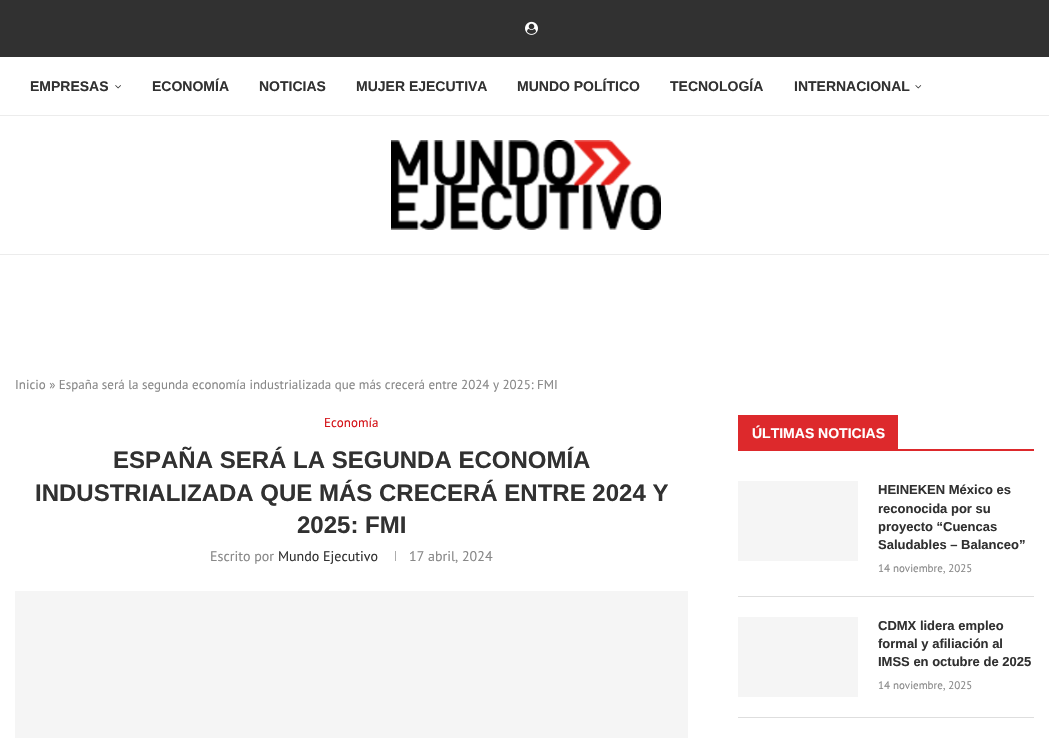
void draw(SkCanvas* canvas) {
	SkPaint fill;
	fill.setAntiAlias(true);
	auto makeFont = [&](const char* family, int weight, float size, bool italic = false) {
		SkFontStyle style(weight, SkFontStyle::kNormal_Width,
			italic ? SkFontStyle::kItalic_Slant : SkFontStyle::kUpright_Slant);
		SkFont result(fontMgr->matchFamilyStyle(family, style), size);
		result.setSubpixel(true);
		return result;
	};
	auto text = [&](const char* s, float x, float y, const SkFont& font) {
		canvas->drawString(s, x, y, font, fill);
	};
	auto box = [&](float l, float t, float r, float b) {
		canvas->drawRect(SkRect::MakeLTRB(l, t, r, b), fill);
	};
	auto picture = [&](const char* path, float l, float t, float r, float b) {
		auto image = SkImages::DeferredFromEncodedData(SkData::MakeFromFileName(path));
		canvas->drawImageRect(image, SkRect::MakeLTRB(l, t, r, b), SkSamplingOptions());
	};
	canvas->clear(0xFFFFFFFF);
	fill.setColor(0xFF313131);
	box(0, 0, 1049, 57);
	picture("image0.png", 525, 21, 538, 35);
	fill.setColor(0xFFECECEC);
	box(0, 115, 1049, 116);
	picture("image1.png", 115, 85, 121, 89);
	picture("image2.png", 915, 85, 922, 89);
	box(0, 254, 1049, 255);
	picture("image3.png", 391, 140, 661, 230);
	fill.setColor(0xFFACACAC);
	box(395, 551, 396, 561);
	fill.setColor(0xFFF5F5F5);
	box(15, 591, 688, 738);
	fill.setColor(0xFFDD292C);
	box(738, 449, 1034, 451);
	box(740, 416, 897, 449);
	box(738, 415, 898, 416);
	box(897, 415, 898, 451);
	box(738, 415, 740, 451);
	fill.setColor(0xFFDEDEDE);
	box(738, 596, 1034, 597);
	fill.setColor(0xFFF5F5F5);
	box(738, 481, 858, 561);
	fill.setColor(0xFFDEDEDE);
	box(738, 717, 1034, 718);
	fill.setColor(0xFFF5F5F5);
	box(738, 617, 858, 697);
	auto font1 = makeFont("Liberation Sans", 700, 14);
	fill.setColor(0xFF313131);
	text("EMPRESAS", 30, 91, font1);
	text("ECONOMÍA", 152, 91, font1);
	text("NOTICIAS", 259, 91, font1);
	text("MUJER EJECUTIVA", 356, 91, font1);
	text("MUNDO POLÍTICO", 517, 91, font1);
	text("TECNOLOGÍA", 670, 91, font1);
	text("INTERNACIONAL", 794, 91, font1);
	auto font2 = makeFont("PT Sans", 400, 13);
	fill.setColor(0xFF888888);
	text("Inicio » España será la segunda economía industrializada que más crecerá entre 2024 y 2025: FMI", 15, 389, font2);
	fill.setColor(0xFFD41217);
	text("Economía", 324, 427, font2);
	auto font3 = makeFont("Liberation Sans", 700, 24);
	fill.setColor(0xFF313131);
	text("ESPAÑA SERÁ LA SEGUNDA ECONOMÍA", 113, 468, font3);
	text("INDUSTRIALIZADA QUE MÁS CRECERÁ ENTRE 2024 Y", 35, 501, font3);
	text("2025: FMI", 297, 533, font3);
	auto font4 = makeFont("PT Sans", 400, 14);
	fill.setColor(0xFF888888);
	text("Escrito por", 210, 561, font4);
	fill.setColor(0xFF313131);
	text("Mundo Ejecutivo", 278, 561, font4);
	fill.setColor(0xFF888888);
	text("17 abril, 2024", 409, 561, font4);
	fill.setColor(0xFFFFFFFF);
	text("ÚLTIMAS NOTICIAS", 752, 438, font1);
	auto font5 = makeFont("Liberation Sans", 700, 13);
	fill.setColor(0xFF313131);
	text("HEINEKEN México es", 878, 494, font5);
	text("reconocida por su", 878, 513, font5);
	text("proyecto “Cuencas", 878, 531, font5);
	text("Saludables – Balanceo”", 878, 549, font5);
	auto font6 = makeFont("PT Sans", 400, 11);
	fill.setColor(0xFF888888);
	text("14 noviembre, 2025", 878, 572, font6);
	fill.setColor(0xFF313131);
	text("CDMX lidera empleo", 878, 630, font5);
	text("formal y afiliación al", 878, 648, font5);
	text("IMSS en octubre de 2025", 878, 666, font5);
	fill.setColor(0xFF888888);
	text("14 noviembre, 2025", 878, 689, font6);
}
